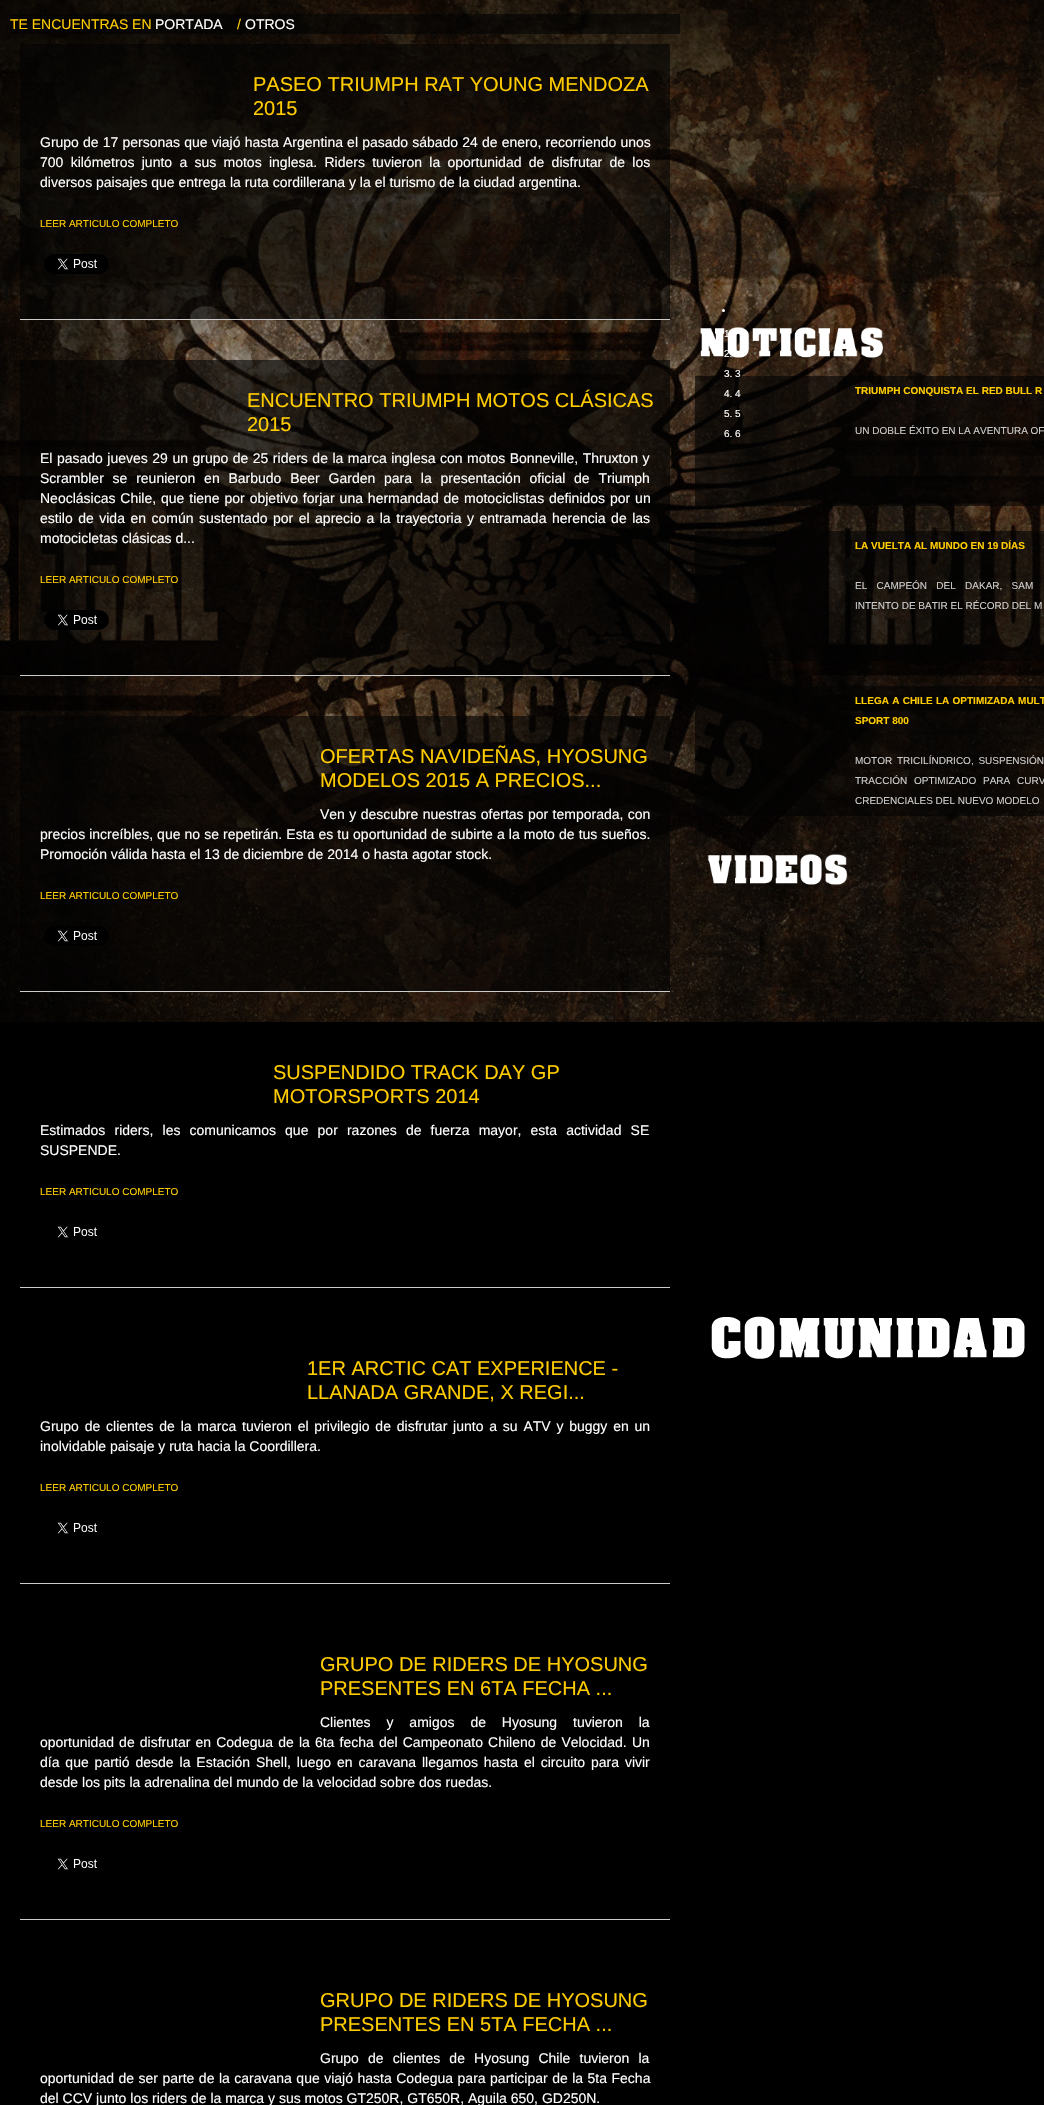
void draw(SkCanvas* canvas) {
	SkPaint fill;
	fill.setAntiAlias(true);
	auto makeFont = [&](const char* family, int weight, float size, bool italic = false) {
		SkFontStyle style(weight, SkFontStyle::kNormal_Width,
			italic ? SkFontStyle::kItalic_Slant : SkFontStyle::kUpright_Slant);
		SkFont result(fontMgr->matchFamilyStyle(family, style), size);
		result.setSubpixel(true);
		return result;
	};
	auto text = [&](const char* s, float x, float y, const SkFont& font) {
		canvas->drawString(s, x, y, font, fill);
	};
	auto spacedText = [&](const char* s, float x, float y, const SkFont& font, const SkPaint& ink, float letter, float word) {
		std::vector<SkGlyphID> glyphs(font.countText(s, strlen(s), SkTextEncoding::kUTF8));
		std::vector<float> xs(glyphs.size());
		font.textToGlyphs(s, strlen(s), SkTextEncoding::kUTF8, glyphs);
		font.getXPos(glyphs, xs, x);
		float extra = 0;
		for (size_t i = 0; i < glyphs.size(); i++) {
			xs[i] += extra;
			extra += letter + word * (glyphs[i] == font.unicharToGlyph(' '));
		}
		canvas->drawTextBlob(SkTextBlob::MakeFromPosHGlyphs(glyphs, xs, y, font), 0, 0, ink);
	};
	auto box = [&](float l, float t, float r, float b) {
		canvas->drawRect(SkRect::MakeLTRB(l, t, r, b), fill);
	};
	auto picture = [&](const char* path, float l, float t, float r, float b) {
		auto image = SkImages::DeferredFromEncodedData(SkData::MakeFromFileName(path));
		canvas->drawImageRect(image, SkRect::MakeLTRB(l, t, r, b), SkSamplingOptions());
	};
	canvas->clear(0xFF000000);
	picture("image0.png", 0, 0, 1044, 1022);
	fill.setColor(0x9C020202);
	box(10, 14, 680, 34);
	box(20, 44, 670, 319);
	fill.setColor(0xFFCCCCCC);
	box(20, 319, 670, 320);
	picture("image1.png", 44, 254, 109, 274);
	fill.setColor(0x9C020202);
	box(20, 360, 670, 675);
	fill.setColor(0xFFCCCCCC);
	box(20, 675, 670, 676);
	picture("image2.png", 44, 610, 109, 630);
	fill.setColor(0x9C020202);
	box(20, 716, 670, 991);
	fill.setColor(0xFFCCCCCC);
	box(20, 991, 670, 992);
	picture("image3.png", 44, 926, 109, 946);
	box(20, 1287, 670, 1288);
	picture("image4.png", 57, 1226, 97, 1238);
	box(20, 1583, 670, 1584);
	picture("image4.png", 57, 1522, 97, 1534);
	box(20, 1919, 670, 1920);
	picture("image4.png", 57, 1858, 97, 1870);
	fill.setColor(0xFFFFFFFF);
	canvas->drawCircle(723.5f, 310.5f, 1.5f, fill);
	fill.setColor(0x9C020202);
	box(695, 376, 1044, 506);
	box(695, 531, 1044, 661);
	box(695, 686, 1044, 816);
	picture("image6.png", 707, 854, 848, 885);
	picture("image7.png", 711, 1316, 1025, 1359);
	auto font1 = makeFont("Liberation Sans", 400, 14);
	fill.setColor(0xFFFFCC00);
	text("TE ENCUENTRAS EN", 10, 29, font1);
	fill.setColor(0xFFFFFFFF);
	text("PORTADA", 155, 29, font1);
	fill.setColor(0xFFFFCC00);
	text("/", 237, 29, font1);
	fill.setColor(0xFFFFFFFF);
	text("OTROS", 245, 29, font1);
	auto font2 = makeFont("Liberation Sans", 400, 20);
	fill.setColor(0xFFFFCC00);
	text("PASEO TRIUMPH RAT YOUNG MENDOZA", 253, 91, font2);
	text("2015", 253, 115, font2);
	fill.setColor(0xFFFFFFFF);
	spacedText("Grupo de 17 personas que viajó hasta Argentina el pasado sábado 24 de enero, recorriendo unos", 40, 147, font1, fill, 0, 0.25f);
	spacedText("700 kilómetros junto a sus motos inglesa. Riders tuvieron la oportunidad de disfrutar de los", 40, 167, font1, fill, 0, 3.4f);
	text("diversos paisajes que entrega la ruta cordillerana y la el turismo de la ciudad argentina.", 40, 187, font1);
	auto font3 = makeFont("Liberation Sans", 400, 10);
	fill.setColor(0xFFFFCC00);
	text("LEER ARTICULO COMPLETO", 40, 227, font3);
	text("ENCUENTRO TRIUMPH MOTOS CLÁSICAS", 247, 407, font2);
	text("2015", 247, 431, font2);
	fill.setColor(0xFFFFFFFF);
	spacedText("El pasado jueves 29 un grupo de 25 riders de la marca inglesa con motos Bonneville, Thruxton y", 40, 463, font1, fill, 0, 0.6f);
	spacedText("Scrambler se reunieron en Barbudo Beer Garden para la presentación oficial de Triumph", 40, 483, font1, fill, 0, 4.9f);
	spacedText("Neoclásicas Chile, que tiene por objetivo forjar una hermandad de motociclistas definidos por un", 40, 503, font1, fill, 0, 1);
	spacedText("estilo de vida en común sustentado por el aprecio a la trayectoria y entramada herencia de las", 40, 523, font1, fill, 0, 1.6f);
	text("motocicletas clásicas d...", 40, 543, font1);
	fill.setColor(0xFFFFCC00);
	text("LEER ARTICULO COMPLETO", 40, 583, font3);
	text("OFERTAS NAVIDEÑAS, HYOSUNG", 320, 763, font2);
	text("MODELOS 2015 A PRECIOS...", 320, 787, font2);
	fill.setColor(0xFFFFFFFF);
	spacedText("Ven y descubre nuestras ofertas por temporada, con", 320, 819, font1, fill, 0, 0.5f);
	spacedText("precios increíbles, que no se repetirán. Esta es tu oportunidad de subirte a la moto de tus sueños.", 40, 839, font1, fill, 0, 0.2f);
	text("Promoción válida hasta el 13 de diciembre de 2014 o hasta agotar stock.", 40, 859, font1);
	fill.setColor(0xFFFFCC00);
	text("LEER ARTICULO COMPLETO", 40, 899, font3);
	text("SUSPENDIDO TRACK DAY GP", 273, 1079, font2);
	text("MOTORSPORTS 2014", 273, 1103, font2);
	fill.setColor(0xFFFFFFFF);
	spacedText("Estimados riders, les comunicamos que por razones de fuerza mayor, esta actividad SE", 40, 1135, font1, fill, 0, 5.25f);
	text("SUSPENDE.", 40, 1155, font1);
	fill.setColor(0xFFFFCC00);
	text("LEER ARTICULO COMPLETO", 40, 1195, font3);
	text("1ER ARCTIC CAT EXPERIENCE -", 307, 1375, font2);
	text("LLANADA GRANDE, X REGI...", 307, 1399, font2);
	fill.setColor(0xFFFFFFFF);
	spacedText("Grupo de clientes de la marca tuvieron el privilegio de disfrutar junto a su ATV y buggy en un", 40, 1431, font1, fill, 0, 1.9f);
	text("inolvidable paisaje y ruta hacia la Coordillera.", 40, 1451, font1);
	fill.setColor(0xFFFFCC00);
	text("LEER ARTICULO COMPLETO", 40, 1491, font3);
	text("GRUPO DE RIDERS DE HYOSUNG", 320, 1671, font2);
	text("PRESENTES EN 6TA FECHA ...", 320, 1695, font2);
	fill.setColor(0xFFFFFFFF);
	spacedText("Clientes y amigos de Hyosung tuvieron la", 320, 1727, font1, fill, 0, 12);
	spacedText("oportunidad de disfrutar en Codegua de la 6ta fecha del Campeonato Chileno de Velocidad. Un", 40, 1747, font1, fill, 0, 1.25f);
	spacedText("día que partió desde la Estación Shell, luego en caravana llegamos hasta el circuito para vivir", 40, 1767, font1, fill, 0, 2);
	text("desde los pits la adrenalina del mundo de la velocidad sobre dos ruedas.", 40, 1787, font1);
	fill.setColor(0xFFFFCC00);
	text("LEER ARTICULO COMPLETO", 40, 1827, font3);
	text("GRUPO DE RIDERS DE HYOSUNG", 320, 2007, font2);
	text("PRESENTES EN 5TA FECHA ...", 320, 2031, font2);
	fill.setColor(0xFFFFFFFF);
	spacedText("Grupo de clientes de Hyosung Chile tuvieron la", 320, 2063, font1, fill, 0, 5.25f);
	spacedText("oportunidad de ser parte de la caravana que viajó hasta Codegua para participar de la 5ta Fecha", 40, 2083, font1, fill, 0, 0.6f);
	text("del CCV junto los riders de la marca y sus motos GT250R, GT650R, Aguila 650, GD250N.", 40, 2103, font1);
	text("1", 724, 337, font3);
	text("2.", 724, 357, font3);
	text("3. 3", 724, 377, font3);
	text("4. 4", 724, 397, font3);
	text("5. 5", 724, 417, font3);
	text("6. 6", 724, 437, font3);
	picture("image5.png", 700, 327, 883, 358);
	auto font4 = makeFont("Liberation Sans", 700, 10);
	fill.setColor(0xFFFFCC00);
	text("TRIUMPH CONQUISTA EL RED BULL R", 855, 394, font4);
	fill.setColor(0xFFCCCCCC);
	text("UN DOBLE ÉXITO EN LA AVENTURA OF", 855, 434, font3);
	fill.setColor(0xFFFFCC00);
	text("LA VUELTA AL MUNDO EN 19 DÍAS", 855, 549, font4);
	fill.setColor(0xFFCCCCCC);
	spacedText("EL CAMPEÓN DEL DAKAR, SAM", 855, 589, font3, fill, 0, 6.5f);
	text("INTENTO DE BATIR EL RÉCORD DEL M", 855, 609, font3);
	fill.setColor(0xFFFFCC00);
	spacedText("LLEGA A CHILE LA OPTIMIZADA MULT", 855, 704, font4, fill, 0, 0.5f);
	text("SPORT 800", 855, 724, font4);
	fill.setColor(0xFFCCCCCC);
	spacedText("MOTOR TRICILÍNDRICO, SUSPENSIÓN", 855, 764, font3, fill, 0, 2);
	spacedText("TRACCIÓN OPTIMIZADO PARA CURV", 855, 784, font3, fill, 0, 4);
	text("CREDENCIALES DEL NUEVO MODELO", 855, 804, font3);
}
